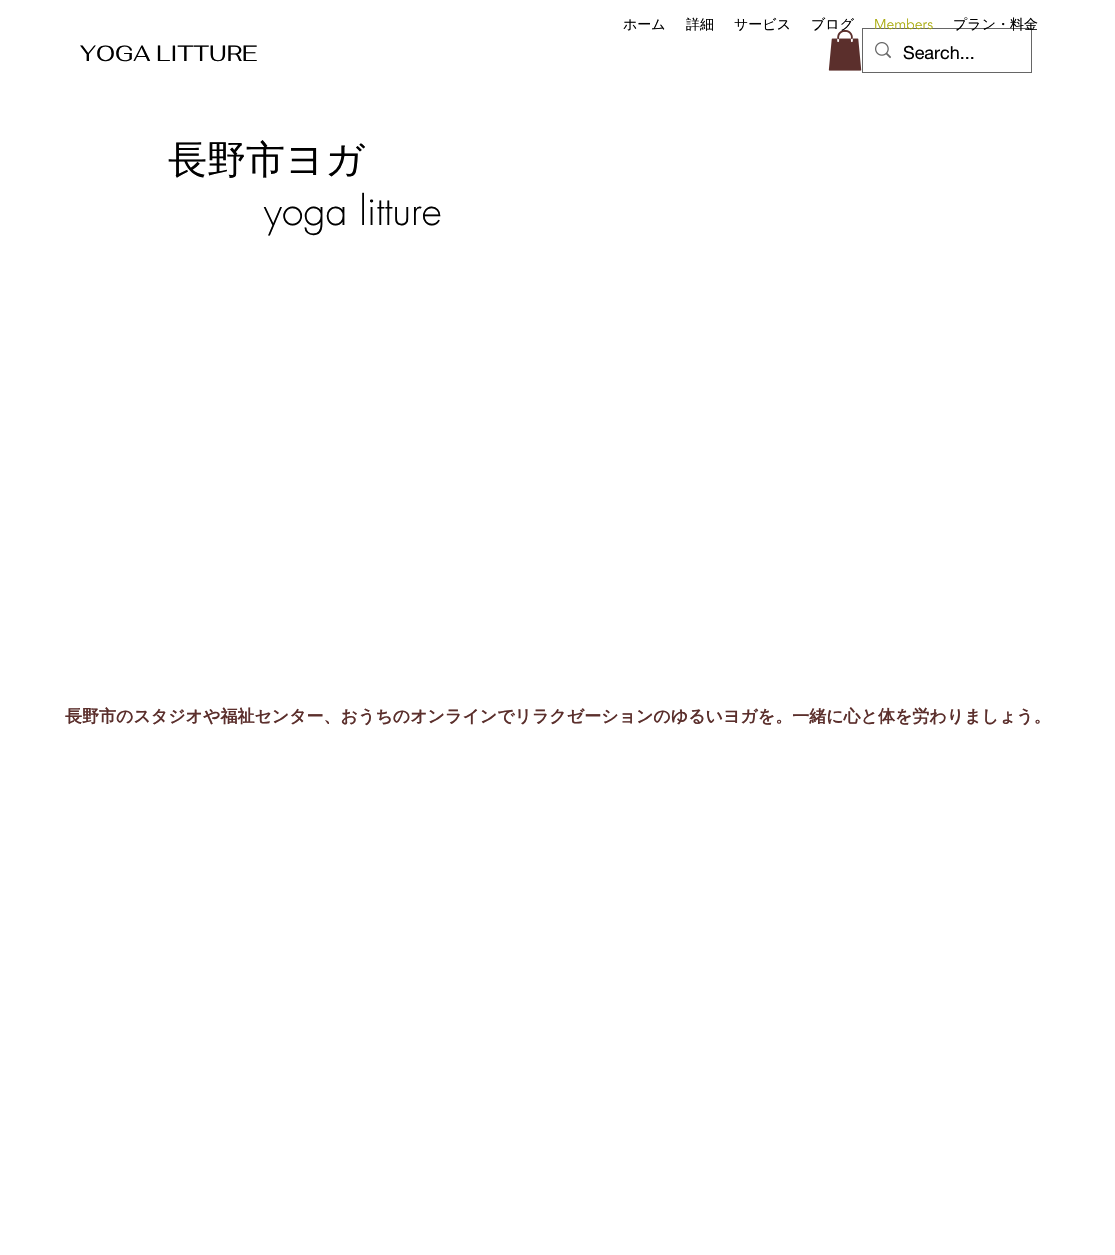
void draw(SkCanvas* canvas) {
	SkPaint fill;
	fill.setAntiAlias(true);
	auto makeFont = [&](const char* family, int weight, float size, bool italic = false) {
		SkFontStyle style(weight, SkFontStyle::kNormal_Width,
			italic ? SkFontStyle::kItalic_Slant : SkFontStyle::kUpright_Slant);
		SkFont result(fontMgr->matchFamilyStyle(family, style), size);
		result.setSubpixel(true);
		return result;
	};
	auto text = [&](const char* s, float x, float y, const SkFont& font) {
		canvas->drawString(s, x, y, font, fill);
	};
	auto picture = [&](const char* path, float l, float t, float r, float b) {
		auto image = SkImages::DeferredFromEncodedData(SkData::MakeFromFileName(path));
		canvas->drawImageRect(image, SkRect::MakeLTRB(l, t, r, b), SkSamplingOptions());
	};
	canvas->clear(0xFFFFFFFF);
	picture("image0.png", 828, 30, 862, 71);
	fill.setStyle(SkPaint::kStroke_Style);
	fill.setStrokeWidth(1);
	fill.setColor(0xFF666666);
	canvas->drawRect(SkRect::MakeLTRB(862.5f, 28.5f, 1031.5f, 72.5f), fill);
	picture("image1.png", 875, 42, 891, 59);
	auto font1 = makeFont("WenQuanYi Zen Hei", 500, 14);
	fill.setStyle(SkPaint::kFill_Style);
	fill.setColor(0xFF000000);
	text("ホーム", 623, 29, font1);
	text("詳細", 686, 29, font1);
	text("サービス", 734, 29, font1);
	text("ブログ", 811, 29, font1);
	auto font2 = makeFont("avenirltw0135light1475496", 300, 14);
	fill.setColor(0xFFA8AA09);
	text("Members", 874, 29, font2);
	fill.setColor(0xFF000000);
	text("プラン・料金", 953, 29, font1);
	auto font3 = makeFont("Fahkwang", 400, 22);
	text("YOGA LITTURE", 80, 61, font3);
	auto font4 = makeFont("helvetica neue", 400, 18);
	text("Search...", 903, 59, font4);
	auto font5 = makeFont("WenQuanYi Zen Hei", 500, 39);
	text("長野市ヨガ", 168, 173, font5);
	auto font6 = makeFont("futura", 300, 39);
	text("yoga litture", 264, 225, font6);
	auto font7 = makeFont("WenQuanYi Zen Hei", 700, 17);
	fill.setColor(0xFF5B2F2C);
	text("長野市のスタジオや福祉センター、おうちのオンラインでリラクゼーションのゆるいヨガを。一緒に心と体を労わりましょう。", 65, 722, font7);
}
